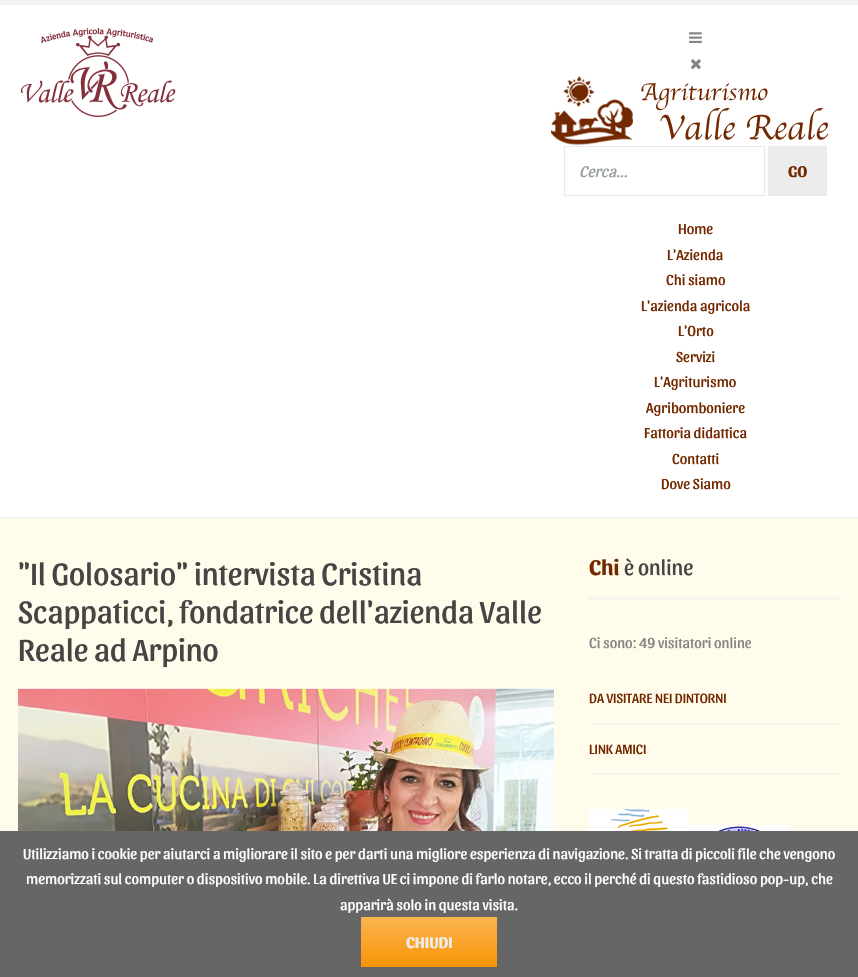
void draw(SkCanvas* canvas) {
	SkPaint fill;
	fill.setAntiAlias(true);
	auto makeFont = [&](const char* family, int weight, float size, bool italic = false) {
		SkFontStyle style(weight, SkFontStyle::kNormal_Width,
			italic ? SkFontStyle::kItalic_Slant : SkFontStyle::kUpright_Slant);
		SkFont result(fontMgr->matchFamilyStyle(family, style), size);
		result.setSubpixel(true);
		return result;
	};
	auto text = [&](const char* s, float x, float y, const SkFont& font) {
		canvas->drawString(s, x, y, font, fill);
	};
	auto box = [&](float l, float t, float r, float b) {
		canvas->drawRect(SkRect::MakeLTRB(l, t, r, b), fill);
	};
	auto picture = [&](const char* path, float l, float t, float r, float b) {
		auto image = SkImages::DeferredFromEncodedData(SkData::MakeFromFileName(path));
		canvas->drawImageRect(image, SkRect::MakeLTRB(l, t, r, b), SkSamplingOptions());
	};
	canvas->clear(0xFFFFFCEB);
	fill.setColor(0xFFFFFFFF);
	box(0, 5, 858, 517);
	fill.setColor(0xFFF1F1F1);
	box(0, 0, 858, 5);
	box(0, 517, 858, 518);
	picture("image0.png", 21, 28, 176, 117);
	picture("image1.png", 689, 32, 702, 43);
	picture("image2.png", 691, 59, 701, 70);
	picture("image3.png", 551, 76, 828, 146);
	fill.setStyle(SkPaint::kStroke_Style);
	fill.setStrokeWidth(1);
	fill.setColor(0xFFE9E9E9);
	canvas->drawRect(SkRect::MakeLTRB(564.5f, 146.5f, 764.5f, 195.5f), fill);
	fill.setStyle(SkPaint::kFill_Style);
	fill.setColor(0xFFECECEC);
	box(768, 146, 827, 196);
	picture("image4.png", 18, 688, 554, 831);
	fill.setColor(0xFFF1F1F1);
	box(589, 599, 840, 600);
	box(589, 597, 840, 598);
	box(589, 723, 840, 724);
	box(589, 773, 840, 774);
	picture("image5.png", 589, 809, 689, 831);
	picture("image6.png", 689, 825, 789, 831);
	fill.setColor(0xFF666666);
	box(0, 831, 858, 977);
	{
		const SkColor colors[] = {0xFFFBB450, 0xFFF89406};
		const float stops[] = {0, 1};
		const SkPoint ends[] = {{429, 917}, {429, 967}};
		fill.setShader(SkGradientShader::MakeLinear(ends, colors, stops, 2, SkTileMode::kClamp));
		fill.setAlpha(255);
	}
	box(361, 917, 497, 967);
	auto font1 = makeFont("Sansita", 400, 16, true);
	fill.setShader(nullptr);
	fill.setColor(0xFF979EA1);
	text("Cerca...", 579, 177, font1);
	auto font2 = makeFont("Sansita", 700, 16);
	fill.setColor(0xFF732900);
	text("GO", 788, 177, font2);
	auto font3 = makeFont("Sansita", 400, 15);
	text("Home", 678, 234, font3);
	text("L'Azienda", 667, 260, font3);
	text("Chi siamo", 666, 285, font3);
	text("L'azienda agricola", 641, 311, font3);
	text("L'Orto", 678, 336, font3);
	text("Servizi", 676, 362, font3);
	text("L'Agriturismo", 654, 387, font3);
	text("Agribomboniere", 646, 413, font3);
	text("Fattoria didattica", 644, 438, font3);
	text("Contatti", 672, 464, font3);
	text("Dove Siamo", 661, 489, font3);
	auto font4 = makeFont("Sansita", 400, 32);
	fill.setColor(0xFF454545);
	text("\"Il Golosario\" intervista Cristina", 18, 585, font4);
	text("Scappaticci, fondatrice dell'azienda Valle", 18, 623, font4);
	text("Reale ad Arpino", 18, 661, font4);
	auto font5 = makeFont("Sansita", 700, 22);
	fill.setColor(0xFF732900);
	text("Chi", 589, 575, font5);
	auto font6 = makeFont("Sansita", 400, 22);
	fill.setColor(0xFF454545);
	text("è online", 624, 575, font6);
	fill.setColor(0xFF858585);
	text("Ci sono: 49 visitatori online", 589, 648, font3);
	auto font7 = makeFont("Sansita", 400, 14);
	fill.setColor(0xFF732900);
	text("DA VISITARE NEI DINTORNI", 589, 703, font7);
	text("LINK AMICI", 589, 754, font7);
	fill.setColor(0xFFFFFFFF);
	text("Utilizziamo i cookie per aiutarci a migliorare il sito e per darti una migliore esperienza di navigazione. Si tratta di piccoli file che vengono", 23, 859, font3);
	text("memorizzati sul computer o dispositivo mobile. La direttiva UE ci impone di farlo notare, ecco il perché di questo fastidioso pop-up, che", 26, 884, font3);
	text("apparirà solo in questa visita.", 340, 910, font3);
	fill.setColor(0xFFEEEEEE);
	text("CHIUDI", 406, 948, font2);
}
